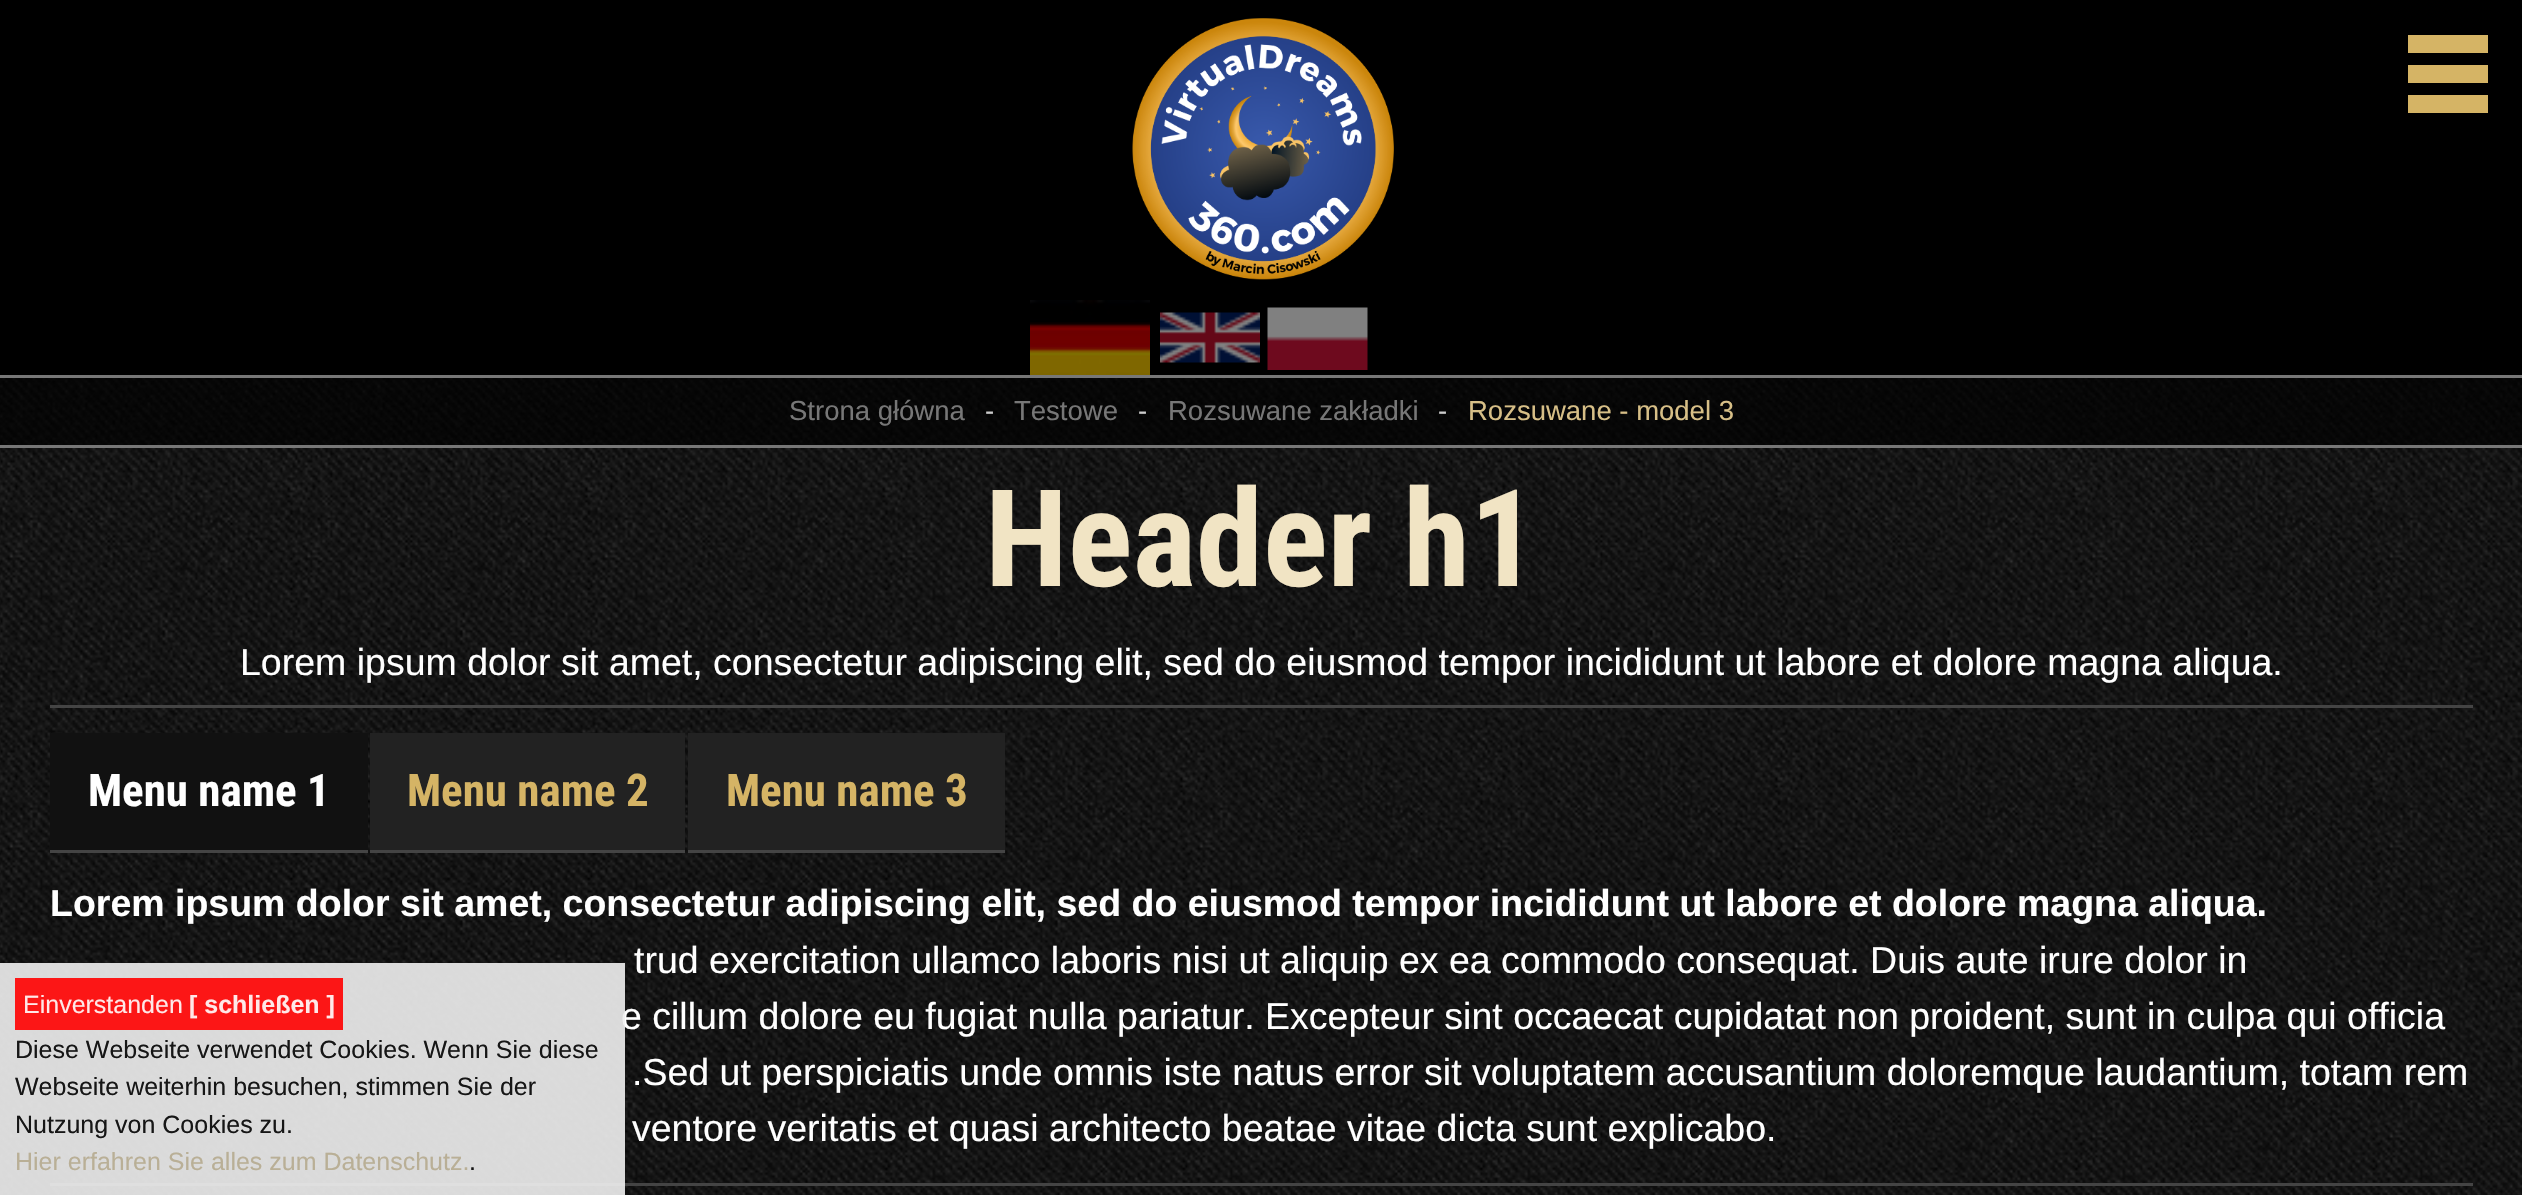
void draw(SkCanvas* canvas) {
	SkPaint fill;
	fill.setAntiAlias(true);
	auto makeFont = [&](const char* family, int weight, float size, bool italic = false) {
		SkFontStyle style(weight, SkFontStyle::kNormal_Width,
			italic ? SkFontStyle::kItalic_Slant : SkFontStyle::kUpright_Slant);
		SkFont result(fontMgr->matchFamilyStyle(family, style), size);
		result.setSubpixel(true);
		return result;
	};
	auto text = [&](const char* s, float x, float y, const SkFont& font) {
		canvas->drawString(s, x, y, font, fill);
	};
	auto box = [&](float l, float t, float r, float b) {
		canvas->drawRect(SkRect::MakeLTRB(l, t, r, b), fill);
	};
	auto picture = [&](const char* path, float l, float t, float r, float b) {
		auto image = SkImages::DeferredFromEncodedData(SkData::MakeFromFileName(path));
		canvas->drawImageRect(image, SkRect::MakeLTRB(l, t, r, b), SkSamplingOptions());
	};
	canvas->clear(0xFFFFFFFF);
	fill.setColor(0xFF000000);
	box(0, 0, 2522, 375);
	fill.setColor(0xFFD5B465);
	box(2408, 35, 2488, 53);
	box(2408, 65, 2488, 83);
	box(2408, 95, 2488, 113);
	picture("image0.png", 0, 378, 2522, 1195);
	picture("image1.png", 1132, 18, 1394, 280);
	picture("image2.png", 1030, 300, 1150, 375);
	picture("image3.png", 1160, 312, 1260, 363);
	picture("image4.png", 1267, 307, 1368, 370);
	fill.setColor(0xB3000000);
	box(0, 378, 2522, 445);
	fill.setColor(0xFF777777);
	box(0, 375, 2522, 378);
	box(0, 445, 2522, 448);
	fill.setColor(0xFF444444);
	box(50, 705, 2473, 708);
	fill.setColor(0xFF111111);
	box(50, 733, 368, 850);
	fill.setColor(0xFF444444);
	box(50, 850, 368, 853);
	fill.setColor(0xFF222222);
	box(370, 733, 685, 850);
	fill.setColor(0xFF444444);
	box(370, 850, 685, 853);
	fill.setColor(0xFF222222);
	box(688, 733, 1005, 850);
	fill.setColor(0xFF444444);
	box(688, 850, 1005, 853);
	box(50, 1183, 2473, 1186);
	auto font1 = makeFont("Liberation Sans", 400, 27.5f);
	fill.setColor(0xFF777777);
	text("Strona główna", 789, 420, font1);
	fill.setColor(0xFFCCCCCC);
	text("-", 985, 420, font1);
	fill.setColor(0xFF777777);
	text("Testowe", 1014, 420, font1);
	fill.setColor(0xFFCCCCCC);
	text("-", 1138, 420, font1);
	fill.setColor(0xFF777777);
	text("Rozsuwane zakładki", 1168, 420, font1);
	fill.setColor(0xFFCCCCCC);
	text("-", 1438, 420, font1);
	fill.setColor(0xFFD7BF87);
	text("Rozsuwane - model 3", 1468, 420, font1);
	auto font2 = makeFont("Roboto Condensed", 700, 135);
	fill.setColor(0xFFF1E4C4);
	text("Header h1", 985, 586, font2);
	auto font3 = makeFont("Liberation Sans", 400, 37.5f);
	fill.setColor(0xFFFFFFFF);
	text("Lorem ipsum dolor sit amet, consectetur adipiscing elit, sed do eiusmod tempor incididunt ut labore et dolore magna aliqua.", 240, 675, font3);
	auto font4 = makeFont("Roboto Condensed", 700, 45);
	text("Menu name 1", 88, 806, font4);
	fill.setColor(0xFFD5B465);
	text("Menu name 2", 407, 806, font4);
	text("Menu name 3", 726, 806, font4);
	auto font5 = makeFont("Liberation Sans", 700, 37.5f);
	fill.setColor(0xFFFFFFFF);
	text("Lorem ipsum dolor sit amet, consectetur adipiscing elit, sed do eiusmod tempor incididunt ut labore et dolore magna aliqua.", 50, 916, font5);
	text("trud exercitation ullamco laboris nisi ut aliquip ex ea commodo consequat. Duis aute irure dolor in", 634, 973, font3);
	text("e cillum dolore eu fugiat nulla pariatur. Excepteur sint occaecat cupidatat non proident, sunt in culpa qui officia", 621, 1029, font3);
	text(".Sed ut perspiciatis unde omnis iste natus error sit voluptatem accusantium doloremque laudantium, totam rem", 632, 1085, font3);
	text("ventore veritatis et quasi architecto beatae vitae dicta sunt explicabo.", 632, 1141, font3);
	fill.setColor(0xE6EFEFEF);
	box(0, 963, 625, 1195);
	fill.setColor(0xE6FF0000);
	box(15, 978, 343, 1030);
	auto font6 = makeFont("Liberation Sans", 400, 25);
	fill.setColor(0xFFFFE8E8);
	text("Einverstanden", 23, 1013, font6);
	auto font7 = makeFont("Liberation Sans", 700, 25);
	text("[ schließen ]", 189, 1013, font7);
	fill.setColor(0xFF161616);
	text("Diese Webseite verwendet Cookies. Wenn Sie diese", 15, 1058, font6);
	text("Webseite weiterhin besuchen, stimmen Sie der", 15, 1095, font6);
	text("Nutzung von Cookies zu.", 15, 1133, font6);
	fill.setColor(0xFFB9AF96);
	text("Hier erfahren Sie alles zum Datenschutz.", 15, 1170, font6);
	fill.setColor(0xFF161616);
	text(".", 469, 1170, font6);
}
